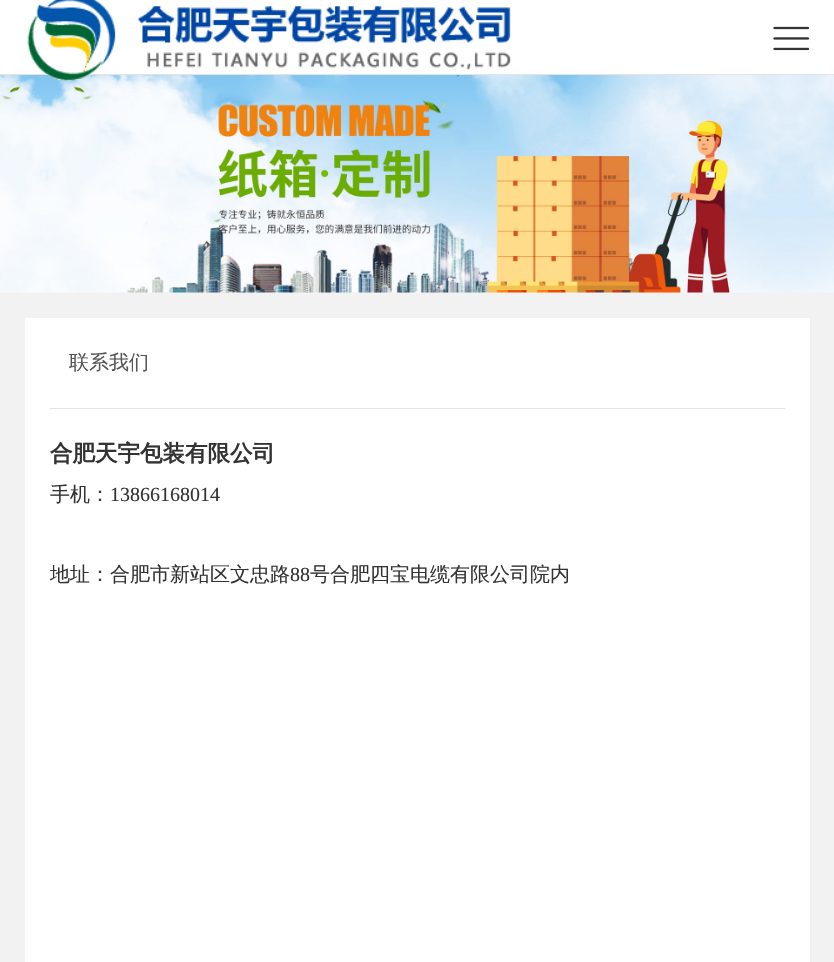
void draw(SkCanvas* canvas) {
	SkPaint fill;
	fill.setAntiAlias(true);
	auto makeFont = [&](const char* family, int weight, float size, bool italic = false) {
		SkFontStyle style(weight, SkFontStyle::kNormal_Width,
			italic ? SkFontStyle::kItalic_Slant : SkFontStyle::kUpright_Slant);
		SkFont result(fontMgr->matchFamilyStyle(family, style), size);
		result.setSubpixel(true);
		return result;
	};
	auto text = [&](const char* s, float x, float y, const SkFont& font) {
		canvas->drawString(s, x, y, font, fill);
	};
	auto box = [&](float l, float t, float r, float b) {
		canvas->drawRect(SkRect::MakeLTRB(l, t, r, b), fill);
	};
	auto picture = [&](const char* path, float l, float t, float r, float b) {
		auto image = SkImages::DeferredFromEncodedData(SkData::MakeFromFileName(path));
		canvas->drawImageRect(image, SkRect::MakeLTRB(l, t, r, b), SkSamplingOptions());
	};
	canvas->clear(0xFFF2F2F2);
	fill.setColor(0xFFFFFFFF);
	box(0, 0, 834, 74);
	fill.setColor(0xFFE4E4E4);
	box(0, 74, 834, 75);
	picture("image2.png", 0, 75, 834, 293);
	picture("image0.png", 27, 0, 511, 82);
	picture("image1.png", 773, 26, 810, 51);
	fill.setColor(0xFFFFFFFF);
	box(25, 318, 810, 962);
	fill.setColor(0xFFE4E4E4);
	box(50, 408, 785, 409);
	auto font1 = makeFont("WenQuanYi Zen Hei", 500, 20);
	fill.setColor(0xFF545454);
	text("联系我们", 69, 369, font1);
	auto font2 = makeFont("WenQuanYi Zen Hei", 700, 22.5f);
	fill.setColor(0xFF333333);
	text("合肥天宇包装有限公司", 50, 461, font2);
	text("手机：", 50, 501, font1);
	auto font3 = makeFont("Liberation Serif", 400, 20);
	text("13866168014", 110, 501, font3);
	text("地址：合肥市新站区文忠路", 50, 581, font1);
	text("88", 290, 581, font3);
	text("号合肥四宝电缆有限公司院内", 310, 581, font1);
}
